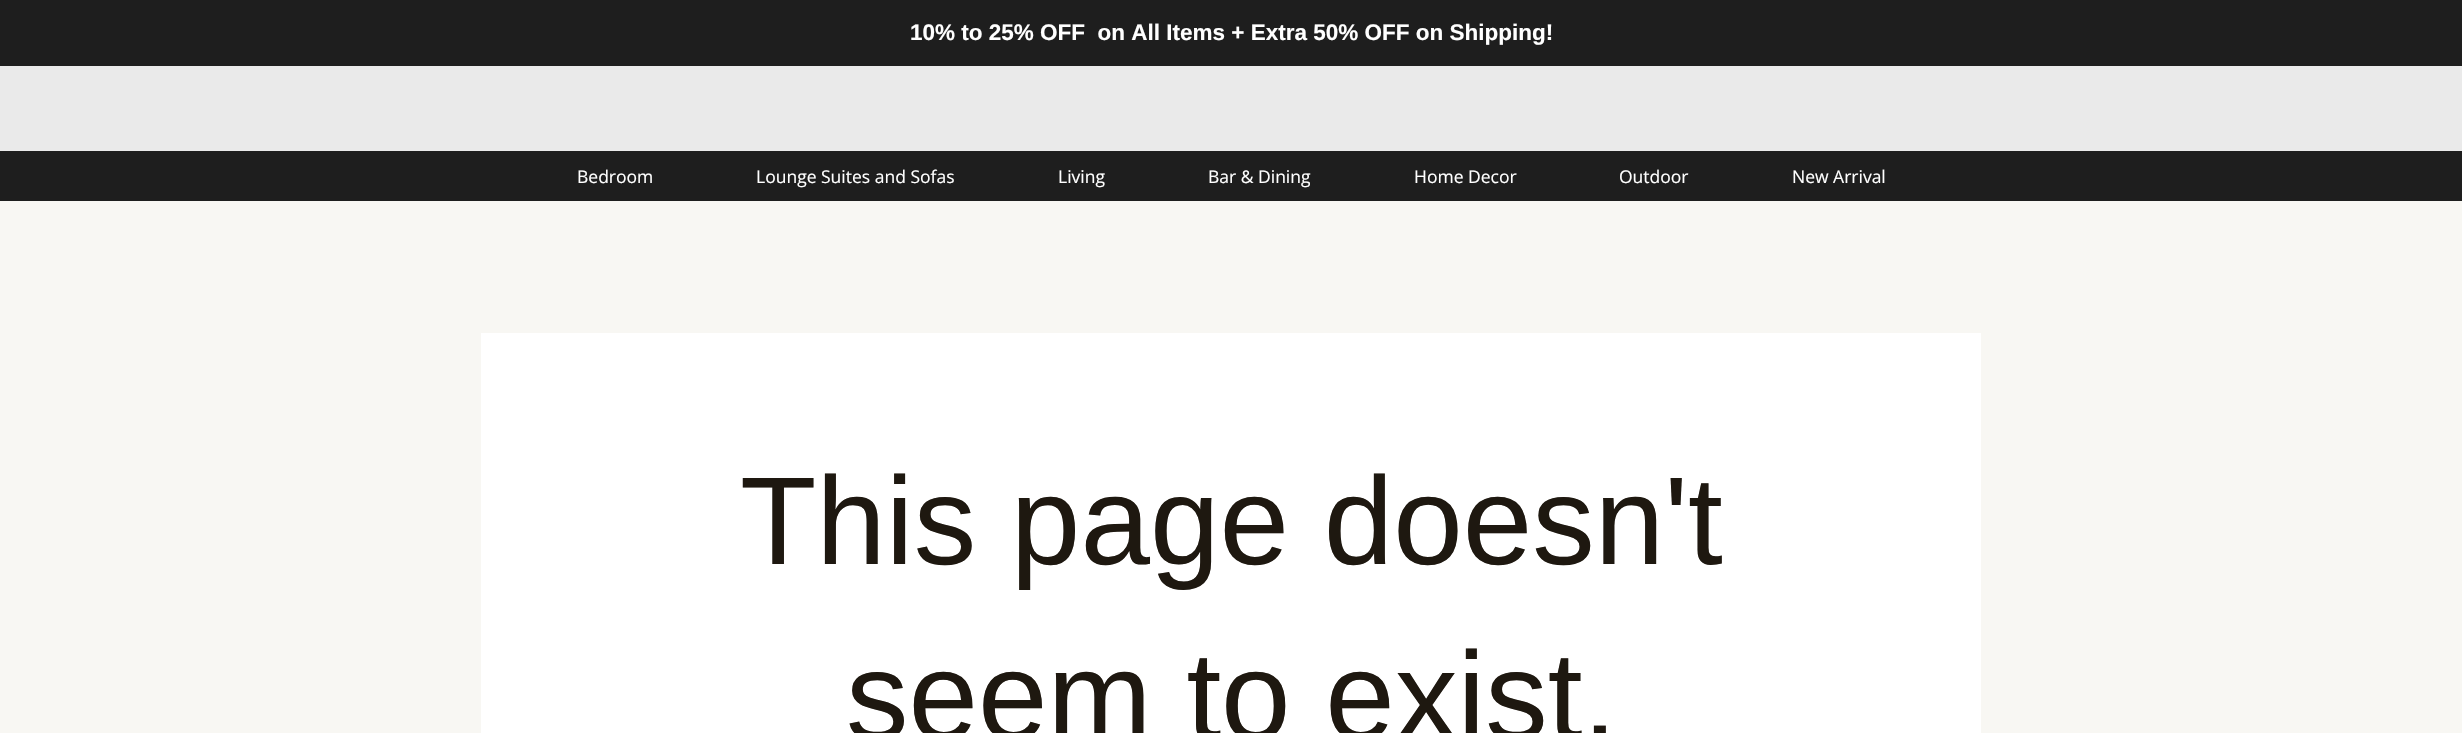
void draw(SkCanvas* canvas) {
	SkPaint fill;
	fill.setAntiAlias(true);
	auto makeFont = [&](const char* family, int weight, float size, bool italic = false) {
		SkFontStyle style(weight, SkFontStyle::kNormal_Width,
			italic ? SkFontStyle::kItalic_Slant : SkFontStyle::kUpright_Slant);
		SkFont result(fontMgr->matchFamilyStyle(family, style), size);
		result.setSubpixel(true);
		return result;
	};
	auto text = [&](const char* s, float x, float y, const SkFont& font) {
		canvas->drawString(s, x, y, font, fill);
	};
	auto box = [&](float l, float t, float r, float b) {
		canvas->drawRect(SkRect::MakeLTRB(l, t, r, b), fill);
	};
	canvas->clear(0xFFF8F7F3);
	fill.setColor(0xFF1E1E1E);
	box(0, 0, 2462, 66);
	fill.setColor(0xFFEAEAEA);
	box(0, 66, 2462, 151);
	fill.setColor(0xFF1E1E1E);
	box(0, 151, 2462, 201);
	fill.setColor(0xFFFFFFFF);
	box(481, 333, 1981, 733);
	auto font1 = makeFont("Liberation Sans", 700, 22.5f);
	text("10% to 25% OFF  on All Items + Extra 50% OFF on Shipping!", 910, 40, font1);
	auto font2 = makeFont("Open Sans", 400, 17.5f);
	text("Bedroom", 577, 183, font2);
	text("Lounge Suites and Sofas", 756, 183, font2);
	text("Living", 1058, 183, font2);
	text("Bar & Dining", 1208, 183, font2);
	text("Home Decor", 1414, 183, font2);
	text("Outdoor", 1619, 183, font2);
	text("New Arrival", 1792, 183, font2);
	auto font3 = makeFont("Liberation Sans", 400, 125);
	fill.setColor(0xFF1E1810);
	text("This page doesn't", 740, 564, font3);
	text("seem to exist.", 846, 739, font3);
}
